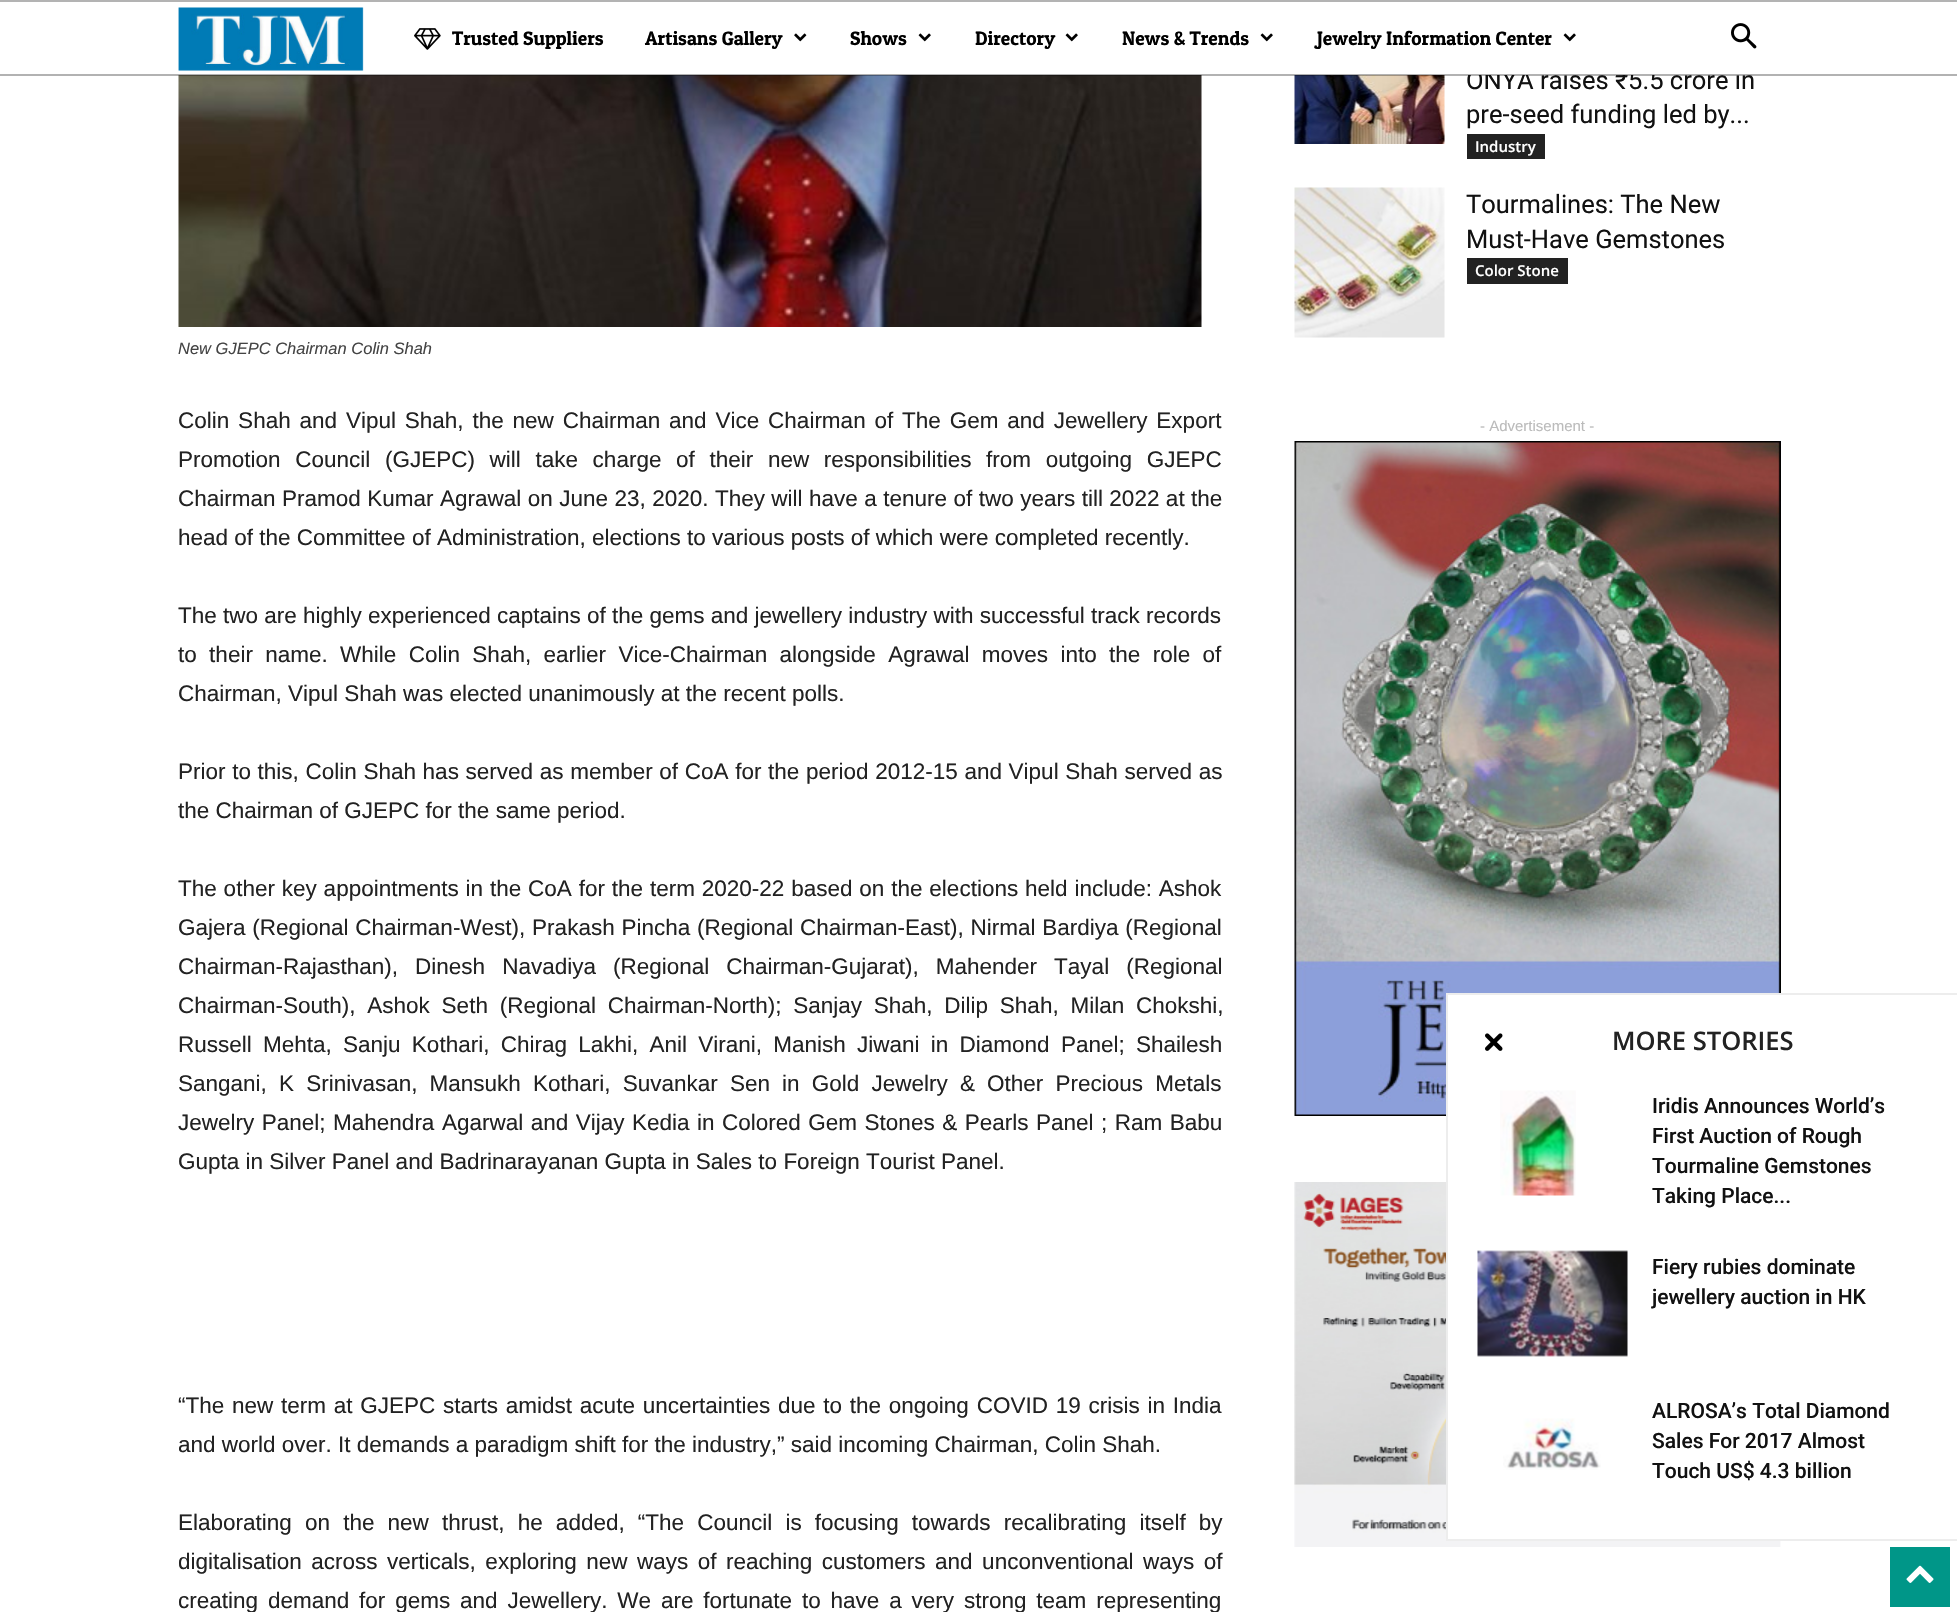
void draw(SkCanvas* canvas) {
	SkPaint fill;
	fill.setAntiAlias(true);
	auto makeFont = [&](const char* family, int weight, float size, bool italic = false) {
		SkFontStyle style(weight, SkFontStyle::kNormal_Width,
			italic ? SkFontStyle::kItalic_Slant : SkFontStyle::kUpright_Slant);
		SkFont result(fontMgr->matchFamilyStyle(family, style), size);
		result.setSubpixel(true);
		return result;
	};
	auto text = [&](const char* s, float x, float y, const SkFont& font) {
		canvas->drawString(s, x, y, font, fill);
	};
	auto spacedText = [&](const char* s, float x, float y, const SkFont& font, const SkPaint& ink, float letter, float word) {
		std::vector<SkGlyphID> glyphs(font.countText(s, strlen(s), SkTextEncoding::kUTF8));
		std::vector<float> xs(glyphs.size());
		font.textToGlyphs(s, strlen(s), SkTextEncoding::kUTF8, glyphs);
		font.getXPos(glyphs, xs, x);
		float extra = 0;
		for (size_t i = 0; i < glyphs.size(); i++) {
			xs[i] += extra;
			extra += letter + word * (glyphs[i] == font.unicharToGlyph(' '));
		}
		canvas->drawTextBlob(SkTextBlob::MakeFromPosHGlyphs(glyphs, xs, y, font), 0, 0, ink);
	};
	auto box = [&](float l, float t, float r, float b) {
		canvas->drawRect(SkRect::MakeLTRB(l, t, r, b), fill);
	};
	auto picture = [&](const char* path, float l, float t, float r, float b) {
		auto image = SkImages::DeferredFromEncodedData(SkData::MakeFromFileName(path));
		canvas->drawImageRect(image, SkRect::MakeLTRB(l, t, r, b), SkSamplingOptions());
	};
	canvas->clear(0xFFFFFFFF);
	fill.setColor(0xFFB3B3B3);
	box(0, 0, 1957, 2);
	picture("image0.png", 178, 7, 364, 71);
	picture("image1.png", 414, 28, 441, 50);
	picture("image2.png", 794, 33, 807, 42);
	picture("image3.png", 918, 33, 931, 42);
	picture("image3.png", 1065, 33, 1078, 42);
	picture("image3.png", 1260, 33, 1273, 42);
	picture("image3.png", 1563, 33, 1576, 42);
	picture("image4.png", 1731, 23, 1757, 49);
	picture("image5.png", 1294, 75, 1445, 144);
	fill.setColor(0xFF222222);
	box(1467, 134, 1545, 159);
	picture("image6.png", 1294, 187, 1445, 338);
	box(1467, 258, 1568, 284);
	picture("image7.png", 1294, 441, 1781, 1116);
	picture("image8.png", 1294, 1182, 1781, 1547);
	picture("image9.png", 178, 75, 1202, 327);
	fill.setColor(0xFFFFFFFF);
	box(1448, 995, 1781, 1539);
	fill.setColor(0xFFEDEDED);
	box(1446, 993, 1957, 995);
	box(1446, 1539, 1957, 1541);
	box(1446, 993, 1448, 1541);
	picture("image10.png", 1485, 1033, 1503, 1051);
	picture("image11.png", 1500, 1090, 1576, 1196);
	picture("image12.png", 1477, 1250, 1628, 1357);
	picture("image13.png", 1503, 1418, 1601, 1470);
	fill.setColor(0xFF009688);
	box(1890, 1547, 1950, 1607);
	picture("image14.png", 1906, 1565, 1934, 1583);
	auto font1 = makeFont("Patua One", 400, 19.5f);
	fill.setColor(0xFF000000);
	text("Trusted Suppliers", 452, 45, font1);
	text("Artisans Gallery", 645, 45, font1);
	text("Shows", 850, 45, font1);
	text("Directory", 975, 45, font1);
	text("News & Trends", 1122, 45, font1);
	text("Jewelry Information Center", 1317, 45, font1);
	auto font2 = makeFont("Roboto", 400, 25.5f);
	fill.setColor(0xFF111111);
	text("ONYA raises ₹5.5 crore in", 1466, 89, font2);
	fill.setColor(0xFFFFFFFF);
	box(1468, 70, 1740, 75);
	fill.setColor(0x4D000000);
	box(0, 74, 1957, 76);
	fill.setColor(0xFF111111);
	text("pre-seed funding led by...", 1466, 123, font2);
	auto font3 = makeFont("Open Sans", 600, 15);
	fill.setColor(0xFFFFFFFF);
	text("Industry", 1475, 152, font3);
	fill.setColor(0xFF111111);
	text("Tourmalines: The New", 1466, 213, font2);
	text("Must-Have Gemstones", 1466, 248, font2);
	fill.setColor(0xFFFFFFFF);
	text("Color Stone", 1475, 276, font3);
	auto font4 = makeFont("Liberation Sans", 400, 15);
	fill.setColor(0xFFBBBBBB);
	text("- Advertisement -", 1480, 431, font4);
	auto font5 = makeFont("Liberation Sans", 400, 16.5f, true);
	fill.setColor(0xFF444444);
	text("New GJEPC Chairman Colin Shah", 178, 354, font5);
	auto font6 = makeFont("Liberation Sans", 400, 22.5f);
	fill.setColor(0xFF222222);
	spacedText("Colin Shah and Vipul Shah, the new Chairman and Vice Chairman of The Gem and Jewellery Export", 178, 428, font6, fill, 0, 2.6f);
	spacedText("Promotion Council (GJEPC) will take charge of their new responsibilities from outgoing GJEPC", 178, 467, font6, fill, 0, 8.4f);
	spacedText("Chairman Pramod Kumar Agrawal on June 23, 2020. They will have a tenure of two years till 2022 at the", 178, 506, font6, fill, 0, 0.2f);
	text("head of the Committee of Administration, elections to various posts of which were completed recently.", 178, 545, font6);
	text("The two are highly experienced captains of the gems and jewellery industry with successful track records", 178, 623, font6);
	spacedText("to their name. While Colin Shah, earlier Vice-Chairman alongside Agrawal moves into the role of", 178, 662, font6, fill, 0, 6.1f);
	text("Chairman, Vipul Shah was elected unanimously at the recent polls.", 178, 701, font6);
	spacedText("Prior to this, Colin Shah has served as member of CoA for the period 2012-15 and Vipul Shah served as", 178, 779, font6, fill, 0, 0.4f);
	text("the Chairman of GJEPC for the same period.", 178, 818, font6);
	spacedText("The other key appointments in the CoA for the term 2020-22 based on the elections held include: Ashok", 178, 896, font6, fill, 0, 0.6f);
	spacedText("Gajera (Regional Chairman-West), Prakash Pincha (Regional Chairman-East), Nirmal Bardiya (Regional", 178, 935, font6, fill, 0, 0.5f);
	spacedText("Chairman-Rajasthan), Dinesh Navadiya (Regional Chairman-Gujarat), Mahender Tayal (Regional", 178, 974, font6, fill, 0, 10.75f);
	spacedText("Chairman-South), Ashok Seth (Regional Chairman-North); Sanjay Shah, Dilip Shah, Milan Chokshi,", 178, 1013, font6, fill, 0, 5.5f);
	spacedText("Russell Mehta, Sanju Kothari, Chirag Lakhi, Anil Virani, Manish Jiwani in Diamond Panel; Shailesh", 178, 1052, font6, fill, 0, 5);
	spacedText("Sangani, K Srinivasan, Mansukh Kothari, Suvankar Sen in Gold Jewelry & Other Precious Metals", 178, 1091, font6, fill, 0, 5.9f);
	spacedText("Jewelry Panel; Mahendra Agarwal and Vijay Kedia in Colored Gem Stones & Pearls Panel ; Ram Babu", 178, 1130, font6, fill, 0, 1.25f);
	text("Gupta in Silver Panel and Badrinarayanan Gupta in Sales to Foreign Tourist Panel.", 178, 1169, font6);
	spacedText("“The new term at GJEPC starts amidst acute uncertainties due to the ongoing COVID 19 crisis in India", 178, 1413, font6, fill, 0, 1.5f);
	text("and world over. It demands a paradigm shift for the industry,” said incoming Chairman, Colin Shah.", 178, 1452, font6);
	spacedText("Elaborating on the new thrust, he added, “The Council is focusing towards recalibrating itself by", 178, 1530, font6, fill, 0, 6.9f);
	spacedText("digitalisation across verticals, exploring new ways of reaching customers and unconventional ways of", 178, 1569, font6, fill, 0, 3.25f);
	spacedText("creating demand for gems and Jewellery. We are fortunate to have a very strong team representing", 178, 1608, font6, fill, 0, 3.6f);
	auto font7 = makeFont("Open Sans", 600, 25.5f);
	text("MORE STORIES", 1612, 1050, font7);
	auto font8 = makeFont("Roboto", 500, 21);
	fill.setColor(0xFF111111);
	text("Iridis Announces World’s", 1652, 1113, font8);
	text("First Auction of Rough", 1652, 1143, font8);
	text("Tourmaline Gemstones", 1652, 1173, font8);
	text("Taking Place...", 1652, 1203, font8);
	text("Fiery rubies dominate", 1652, 1274, font8);
	text("jewellery auction in HK", 1652, 1304, font8);
	text("ALROSA’s Total Diamond", 1652, 1418, font8);
	text("Sales For 2017 Almost", 1652, 1448, font8);
	text("Touch US$ 4.3 billion", 1652, 1478, font8);
}
